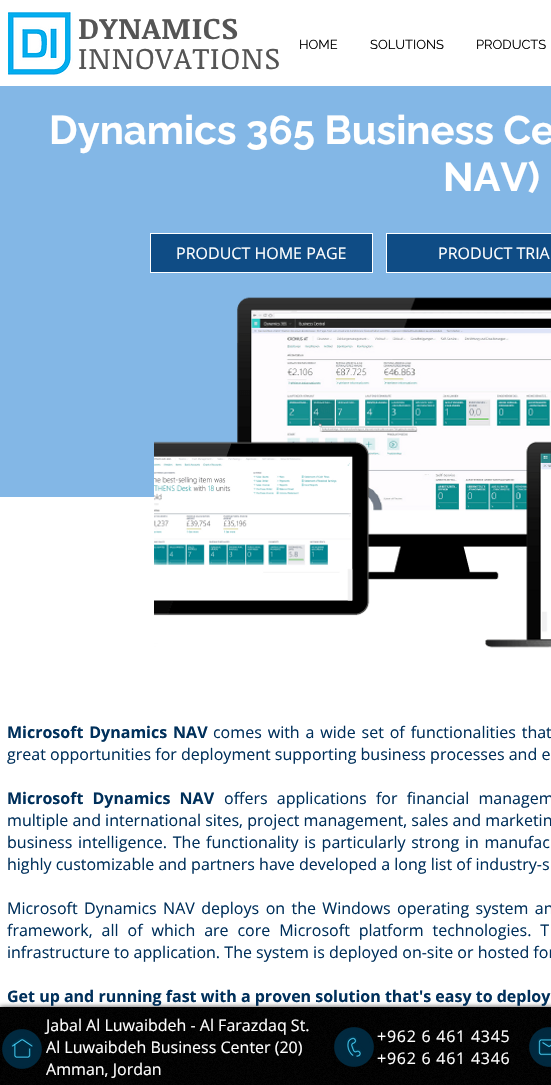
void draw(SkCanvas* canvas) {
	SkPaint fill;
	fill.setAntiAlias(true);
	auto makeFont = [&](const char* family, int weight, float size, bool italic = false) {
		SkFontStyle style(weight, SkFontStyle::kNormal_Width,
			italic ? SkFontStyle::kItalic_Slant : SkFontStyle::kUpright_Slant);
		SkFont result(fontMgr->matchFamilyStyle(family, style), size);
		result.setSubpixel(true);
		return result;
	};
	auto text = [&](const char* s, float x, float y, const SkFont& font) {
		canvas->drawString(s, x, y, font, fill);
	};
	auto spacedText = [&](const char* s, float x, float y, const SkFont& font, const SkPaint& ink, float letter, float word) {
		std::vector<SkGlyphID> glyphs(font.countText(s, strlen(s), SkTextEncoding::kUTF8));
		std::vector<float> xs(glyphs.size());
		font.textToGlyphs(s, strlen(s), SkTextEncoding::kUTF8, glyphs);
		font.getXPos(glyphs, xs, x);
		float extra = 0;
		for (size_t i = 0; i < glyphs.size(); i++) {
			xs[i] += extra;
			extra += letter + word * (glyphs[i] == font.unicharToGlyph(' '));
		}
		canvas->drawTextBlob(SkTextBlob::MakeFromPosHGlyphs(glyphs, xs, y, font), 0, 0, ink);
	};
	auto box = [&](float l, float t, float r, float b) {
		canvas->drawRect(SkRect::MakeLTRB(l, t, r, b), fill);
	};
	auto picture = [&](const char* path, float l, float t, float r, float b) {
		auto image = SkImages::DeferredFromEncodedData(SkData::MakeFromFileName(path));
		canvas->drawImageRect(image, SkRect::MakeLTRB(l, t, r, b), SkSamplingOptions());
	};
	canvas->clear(0xFFFFFFFF);
	picture("image0.png", 8, 12, 73, 75);
	fill.setColor(0xFF83B7E6);
	box(0, 86, 551, 497);
	fill.setColor(0xFF0F4C85);
	canvas->drawRect(SkRect::MakeLTRB(150.5f, 233.5f, 372.5f, 272.5f), fill);
	fill.setStyle(SkPaint::kStroke_Style);
	fill.setStrokeWidth(1);
	fill.setColor(0xFFFFFFFF);
	canvas->drawRect(SkRect::MakeLTRB(150.5f, 233.5f, 372.5f, 272.5f), fill);
	fill.setStyle(SkPaint::kFill_Style);
	fill.setColor(0xFF0F4C85);
	canvas->drawRect(SkRect::MakeLTRB(386.5f, 233.5f, 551.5f, 272.5f), fill);
	fill.setStyle(SkPaint::kStroke_Style);
	fill.setColor(0xFFFFFFFF);
	canvas->drawRect(SkRect::MakeLTRB(386.5f, 233.5f, 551.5f, 272.5f), fill);
	picture("image1.png", 154, 297, 551, 648);
	fill.setStyle(SkPaint::kFill_Style);
	fill.setColor(0xB3000000);
	fill.setMaskFilter(SkMaskFilter::MakeBlur(kNormal_SkBlurStyle, 2.5f));
	canvas->drawRect(SkRect::MakeLTRB(0, 1007, 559, 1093), fill);
	fill.setMaskFilter(nullptr);
	fill.setColor(0xFF000000);
	box(0, 1007, 551, 1085);
	picture("image2.png", 0, 1007, 551, 1085);
	picture("image3.png", 2, 1029, 42, 1069);
	picture("image4.png", 334, 1027, 374, 1067);
	picture("image5.png", 529, 1027, 551, 1067);
	auto font1 = makeFont("Noticia Text", 700, 30);
	fill.setColor(0xFF555555);
	spacedText("DYNAMICS", 78, 39, font1, fill, 0.9f, 0);
	auto font2 = makeFont("Noticia Text", 400, 30);
	spacedText("INNOVATIONS", 78, 69, font2, fill, 0.9f, 0);
	auto font3 = makeFont("Raleway", 400, 13);
	fill.setColor(0xFF000000);
	text("HOME", 299, 49, font3);
	text("SOLUTIONS", 370, 49, font3);
	text("PRODUCTS", 476, 49, font3);
	auto font4 = makeFont("Raleway", 700, 40);
	fill.setColor(0xFFFFFFFF);
	text("Dynamics 365 Business Ce", 49, 144, font4);
	text("NAV)", 443, 191, font4);
	auto font5 = makeFont("Open Sans", 400, 16);
	text("PRODUCT HOME PAGE", 176, 259, font5);
	text("PRODUCT TRIA", 438, 259, font5);
	auto font6 = makeFont("Open Sans", 700, 16);
	fill.setColor(0xFF00305B);
	spacedText("Microsoft Dynamics NAV", 7, 738, font6, fill, 0, 1.75f);
	spacedText("comes with a wide set of functionalities that", 213, 738, font5, fill, 0, 1.75f);
	text("great opportunities for deployment supporting business processes and e", 7, 760, font5);
	spacedText("Microsoft Dynamics NAV", 7, 804, font6, fill, 0, 5);
	spacedText("offers applications for financial managem", 224, 804, font5, fill, 0, 5);
	text("multiple and international sites, project management, sales and marketin", 7, 826, font5);
	spacedText("business intelligence. The functionality is particularly strong in manufac", 7, 848, font5, fill, 0, 1.5f);
	text("highly customizable and partners have developed a long list of industry-s", 7, 870, font5);
	spacedText("Microsoft Dynamics NAV deploys on the Windows operating system an", 7, 914, font5, fill, 0, 2.25f);
	spacedText("framework, all of which are core Microsoft platform technologies. T", 7, 936, font5, fill, 0, 4.75f);
	text("infrastructure to application. The system is deployed on-site or hosted for", 7, 958, font5);
	text("Get up and running fast with a proven solution that's easy to deploy", 7, 1002, font6);
	fill.setColor(0xFFFFFFFF);
	text("Jabal Al Luwaibdeh - Al Farazdaq St.", 46, 1031, font5);
	text("Al Luwaibdeh Business Center (20)", 46, 1053, font5);
	text("Amman, Jordan", 46, 1075, font5);
	spacedText("+962 6 461 4345", 377, 1042, font5, fill, 0.75f, 0);
	spacedText("+962 6 461 4346", 377, 1064, font5, fill, 0.75f, 0);
}
